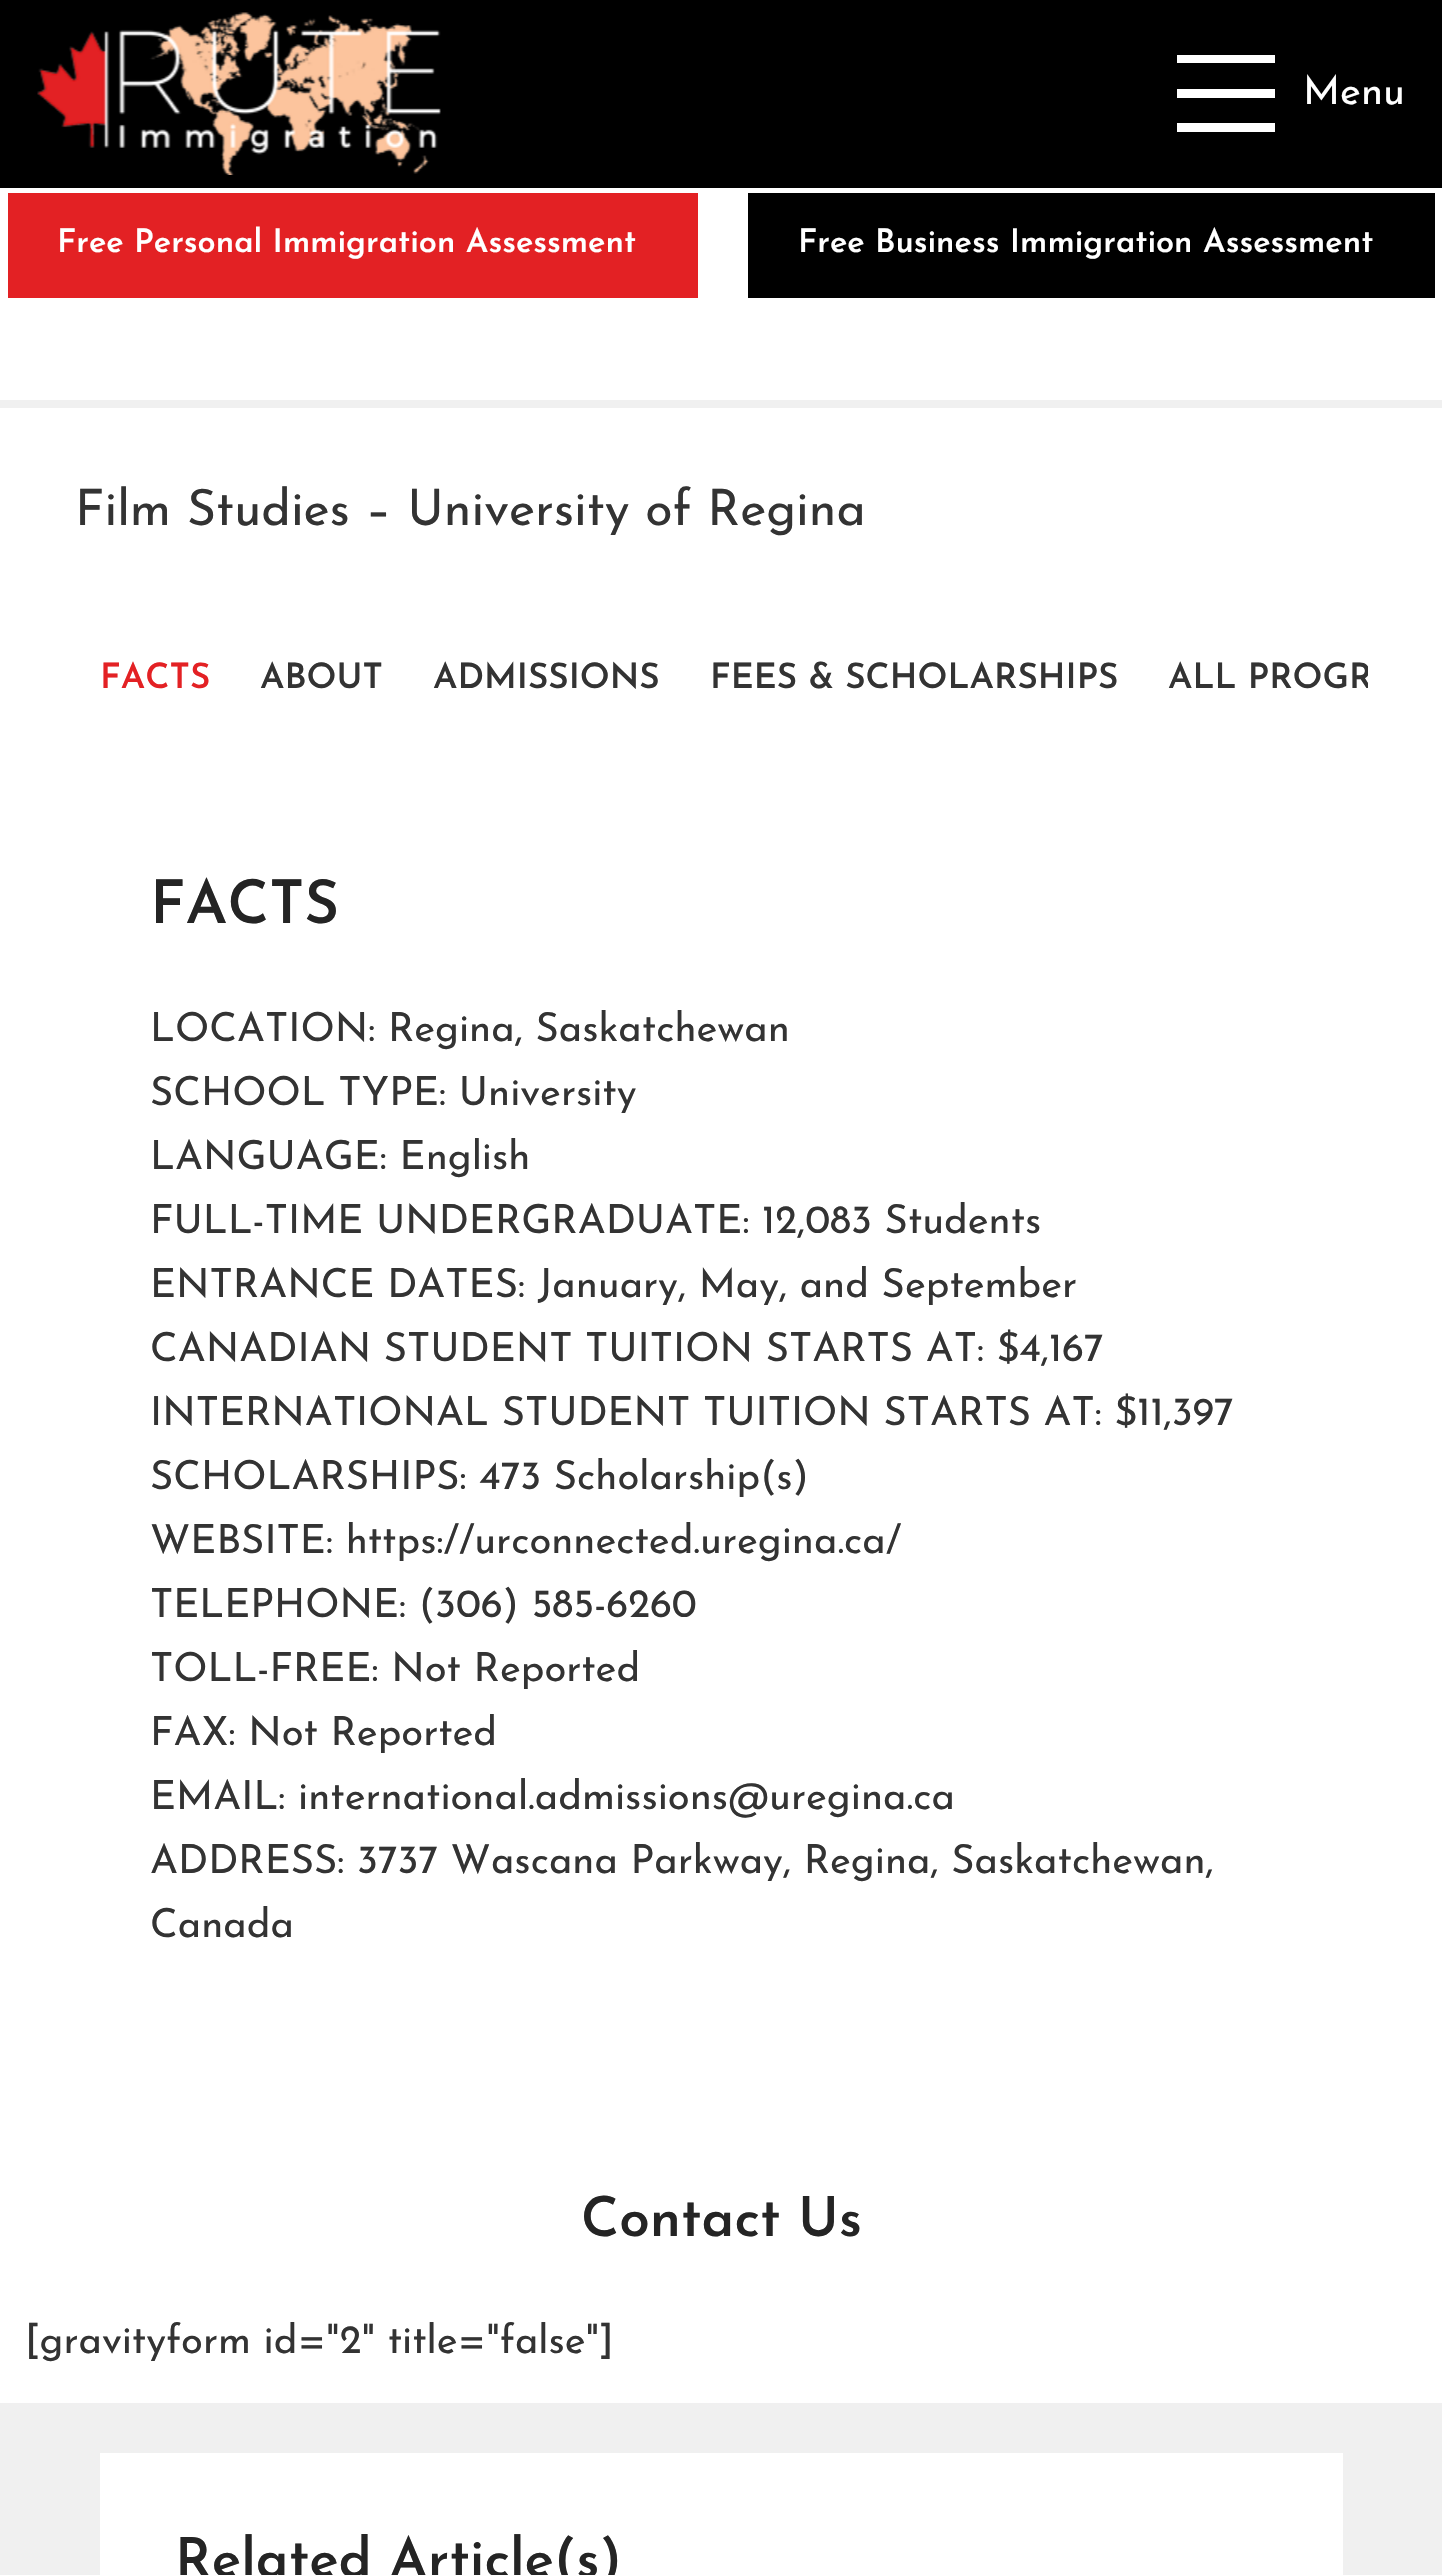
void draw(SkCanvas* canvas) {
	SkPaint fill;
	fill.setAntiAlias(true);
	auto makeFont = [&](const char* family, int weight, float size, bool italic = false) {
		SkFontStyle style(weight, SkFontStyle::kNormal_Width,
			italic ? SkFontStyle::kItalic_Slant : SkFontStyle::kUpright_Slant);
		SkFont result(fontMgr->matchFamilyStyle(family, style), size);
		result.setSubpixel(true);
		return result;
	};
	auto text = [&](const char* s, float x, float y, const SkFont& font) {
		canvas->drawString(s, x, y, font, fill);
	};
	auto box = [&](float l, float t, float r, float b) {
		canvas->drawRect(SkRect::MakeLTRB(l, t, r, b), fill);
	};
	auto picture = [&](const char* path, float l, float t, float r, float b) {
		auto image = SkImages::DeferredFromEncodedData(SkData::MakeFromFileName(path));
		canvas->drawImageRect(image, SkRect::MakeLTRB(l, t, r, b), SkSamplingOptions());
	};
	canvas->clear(0xFFFFFFFF);
	fill.setColor(0xFF000000);
	box(0, 0, 1442, 188);
	picture("image0.png", 37, 12, 441, 175);
	fill.setColor(0xFFFFFFFF);
	canvas->drawPath(SkPathBuilder().moveTo(1177, 63).lineTo(1275, 63).lineTo(1275, 55).lineTo(1177, 55).close().moveTo(1177, 98).lineTo(1275, 98).lineTo(1275, 89).lineTo(1177, 89).close().moveTo(1177, 132).lineTo(1275, 132).lineTo(1275, 123).lineTo(1177, 123).close().detach(), fill);
	fill.setColor(0xFFE32124);
	box(8, 193, 698, 298);
	fill.setColor(0xFF000000);
	box(748, 193, 1435, 298);
	fill.setColor(0xFFF0F0F0);
	box(0, 400, 1442, 408);
	box(0, 2403, 1442, 2575);
	fill.setColor(0xFFFFFFFF);
	box(100, 2453, 1343, 2575);
	auto font1 = makeFont("Josefin Sans", 400, 40);
	text("Menu", 1303, 104, font1);
	auto font2 = makeFont("Josefin Sans", 600, 32.5f);
	text("Free Personal Immigration Assessment", 57, 252, font2);
	text("Free Business Immigration Assessment", 798, 252, font2);
	auto font3 = makeFont("Josefin Sans", 400, 50);
	fill.setColor(0xFF333333);
	text("Film Studies – University of Regina", 75, 525, font3);
	auto font4 = makeFont("Josefin Sans", 600, 35);
	fill.setColor(0xFFE32124);
	text("FACTS", 100, 688, font4);
	fill.setColor(0xFF333333);
	text("ABOUT", 260, 688, font4);
	text("ADMISSIONS", 433, 688, font4);
	text("FEES & SCHOLARSHIPS", 710, 688, font4);
	canvas->save();
	canvas->clipRect(SkRect::MakeLTRB(75, 593, 1368, 768));
	text("ALL PROGR", 1168, 688, font4);
	canvas->restore();
	auto font5 = makeFont("Josefin Sans", 600, 60);
	fill.setColor(0xFF242424);
	text("FACTS", 150, 923, font5);
	fill.setColor(0xFF333333);
	text("LOCATION: Regina, Saskatchewan", 150, 1041, font1);
	text("SCHOOL TYPE: University", 150, 1105, font1);
	text("LANGUAGE: English", 150, 1169, font1);
	text("FULL-TIME UNDERGRADUATE: 12,083 Students", 150, 1233, font1);
	text("ENTRANCE DATES: January, May, and September", 150, 1297, font1);
	text("CANADIAN STUDENT TUITION STARTS AT: $4,167", 150, 1361, font1);
	text("INTERNATIONAL STUDENT TUITION STARTS AT: $11,397", 150, 1425, font1);
	text("SCHOLARSHIPS: 473 Scholarship(s)", 150, 1489, font1);
	text("WEBSITE: https://urconnected.uregina.ca/", 150, 1553, font1);
	text("TELEPHONE: (306) 585-6260", 150, 1617, font1);
	text("TOLL-FREE: Not Reported", 150, 1681, font1);
	text("FAX: Not Reported", 150, 1745, font1);
	text("EMAIL: international.admissions@uregina.ca", 150, 1809, font1);
	text("ADDRESS: 3737 Wascana Parkway, Regina, Saskatchewan,", 150, 1873, font1);
	text("Canada", 150, 1937, font1);
	auto font6 = makeFont("Josefin Sans", 600, 55);
	fill.setColor(0xFF242424);
	text("Contact Us", 581, 2236, font6);
	fill.setColor(0xFF333333);
	text("[gravityform id=\"2\" title=\"false\"]", 25, 2353, font1);
	fill.setColor(0xFF242424);
	text("Related Article(s)", 175, 2577, font6);
}
